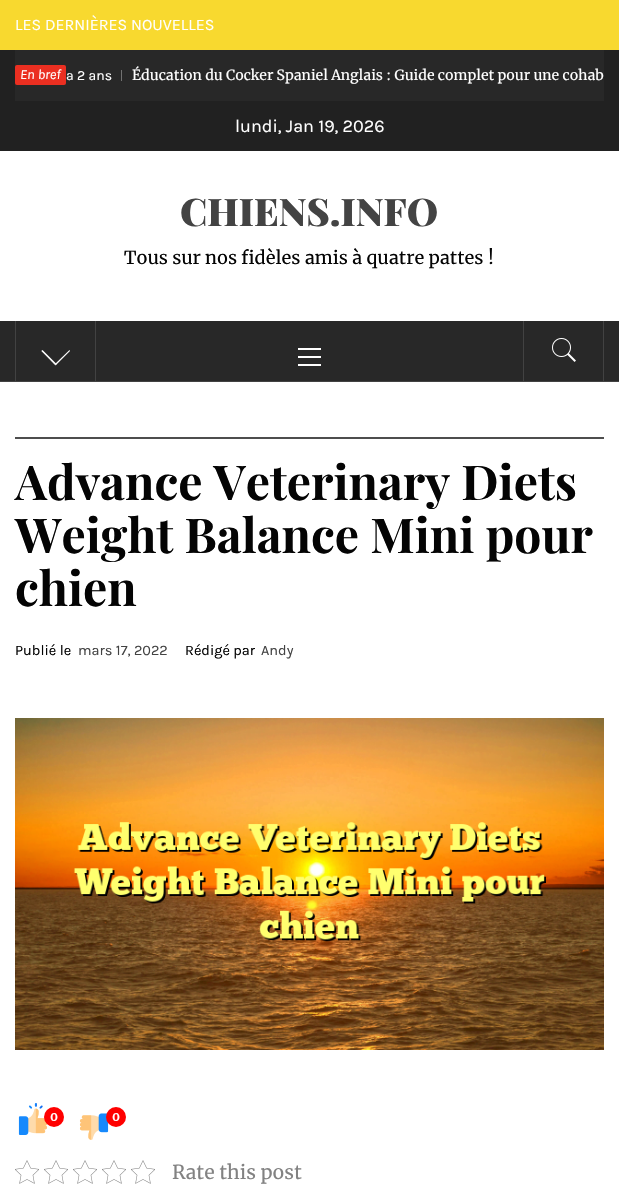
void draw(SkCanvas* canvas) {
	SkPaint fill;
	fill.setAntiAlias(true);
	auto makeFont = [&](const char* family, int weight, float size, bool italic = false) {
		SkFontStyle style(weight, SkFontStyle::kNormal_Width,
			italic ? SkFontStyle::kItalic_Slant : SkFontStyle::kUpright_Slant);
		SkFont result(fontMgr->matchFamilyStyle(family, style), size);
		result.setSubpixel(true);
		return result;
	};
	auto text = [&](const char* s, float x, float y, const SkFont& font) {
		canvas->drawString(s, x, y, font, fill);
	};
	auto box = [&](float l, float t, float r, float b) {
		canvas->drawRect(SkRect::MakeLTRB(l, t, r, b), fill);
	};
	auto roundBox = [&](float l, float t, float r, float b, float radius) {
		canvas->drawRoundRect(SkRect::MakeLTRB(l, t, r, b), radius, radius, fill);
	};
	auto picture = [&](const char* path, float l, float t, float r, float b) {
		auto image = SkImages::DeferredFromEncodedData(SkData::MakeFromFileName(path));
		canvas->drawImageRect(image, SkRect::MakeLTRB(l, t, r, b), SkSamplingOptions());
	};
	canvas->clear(0xFFFFFFFF);
	fill.setColor(0xFFF8D92F);
	box(0, 0, 619, 50);
	fill.setColor(0xFF212121);
	box(0, 50, 619, 151);
	fill.setColor(0xFF282828);
	box(15, 50, 604, 101);
	fill.setColor(0xFFEB2F21);
	roundBox(15, 65, 66, 85, 2);
	fill.setColor(0xFF727272);
	box(121, 70, 122, 81);
	fill.setColor(0xFF282828);
	box(0, 321, 619, 381);
	fill.setColor(0xFF424242);
	box(0, 381, 619, 382);
	box(603, 321, 604, 381);
	box(15, 321, 16, 381);
	box(95, 321, 96, 381);
	fill.setColor(0xFFFFFFFF);
	canvas->drawPath(SkPathBuilder().moveTo(42, 350.5f).lineTo(56, 364.5f).lineTo(55.5f, 365.5f).lineTo(41.5f, 351).close().detach(), fill);
	canvas->drawPath(SkPathBuilder().moveTo(69.5f, 350).lineTo(70, 351).lineTo(56, 365).lineTo(55, 364).close().detach(), fill);
	canvas->drawPath(SkPathBuilder().moveTo(42.5f, 350).lineTo(56.5f, 364).lineTo(56, 365).lineTo(41.5f, 351).close().detach(), fill);
	box(298, 356, 321, 358);
	box(298, 348, 321, 350);
	box(298, 364, 321, 366);
	fill.setColor(0xFF424242);
	box(523, 321, 524, 381);
	picture("image0.png", 552, 338, 576, 362);
	fill.setColor(0xFF4E4E4E);
	box(15, 437, 604, 439);
	picture("image1.png", 15, 718, 604, 1050);
	picture("image2.png", 18, 1103, 48, 1135);
	fill.setColor(0xFFFF0000);
	canvas->drawCircle(54, 1117, 10, fill);
	picture("image3.png", 79, 1113, 109, 1140);
	canvas->drawCircle(116, 1117, 10, fill);
	picture("image4.png", 15, 1160, 39, 1184);
	picture("image4.png", 44, 1160, 68, 1184);
	picture("image4.png", 73, 1160, 97, 1184);
	picture("image4.png", 102, 1160, 126, 1184);
	picture("image4.png", 131, 1160, 155, 1184);
	auto font1 = makeFont("Karla", 400, 16);
	fill.setColor(0xFFFFFFFF);
	text("LES DERNIÈRES NOUVELLES", 15, 30, font1);
	auto font2 = makeFont("Karla", 400, 14, true);
	text("En bref", 20, 79, font2);
	auto font3 = makeFont("Karla", 400, 14);
	text("a 2 ans", 66, 80, font3);
	auto font4 = makeFont("Merriweather", 400, 14);
	text("Éducation du Cocker Spaniel Anglais : Guide complet pour une cohab", 132, 80, font4);
	auto font5 = makeFont("Karla", 400, 18);
	text("lundi, Jan 19, 2026", 235, 132, font5);
	auto font6 = makeFont("Playfair Display", 900, 38);
	fill.setColor(0xFF434343);
	text("CHIENS.INFO", 180, 226, font6);
	auto font7 = makeFont("Merriweather", 400, 18);
	fill.setColor(0xFF040404);
	text("Tous sur nos fidèles amis à quatre pattes !", 124, 264, font7);
	auto font8 = makeFont("Playfair Display", 700, 48);
	text("Advance Veterinary Diets", 15, 500, font8);
	text("Weight Balance Mini pour", 15, 553, font8);
	text("chien", 15, 606, font8);
	auto font9 = makeFont("Karla", 400, 14.5f);
	text("Publié le", 15, 655, font9);
	fill.setColor(0xFF434343);
	text("mars 17, 2022", 78, 655, font9);
	fill.setColor(0xFF040404);
	text("Rédigé par", 185, 655, font9);
	fill.setColor(0xFF434343);
	text("Andy", 261, 655, font9);
	auto font10 = makeFont("Merriweather", 700, 12);
	fill.setColor(0xFFFFFFFF);
	text("0", 50, 1121, font10);
	text("0", 112, 1121, font10);
	auto font11 = makeFont("Merriweather", 400, 19.25f);
	fill.setColor(0xFF828282);
	text("Rate this post", 172, 1179, font11);
}
